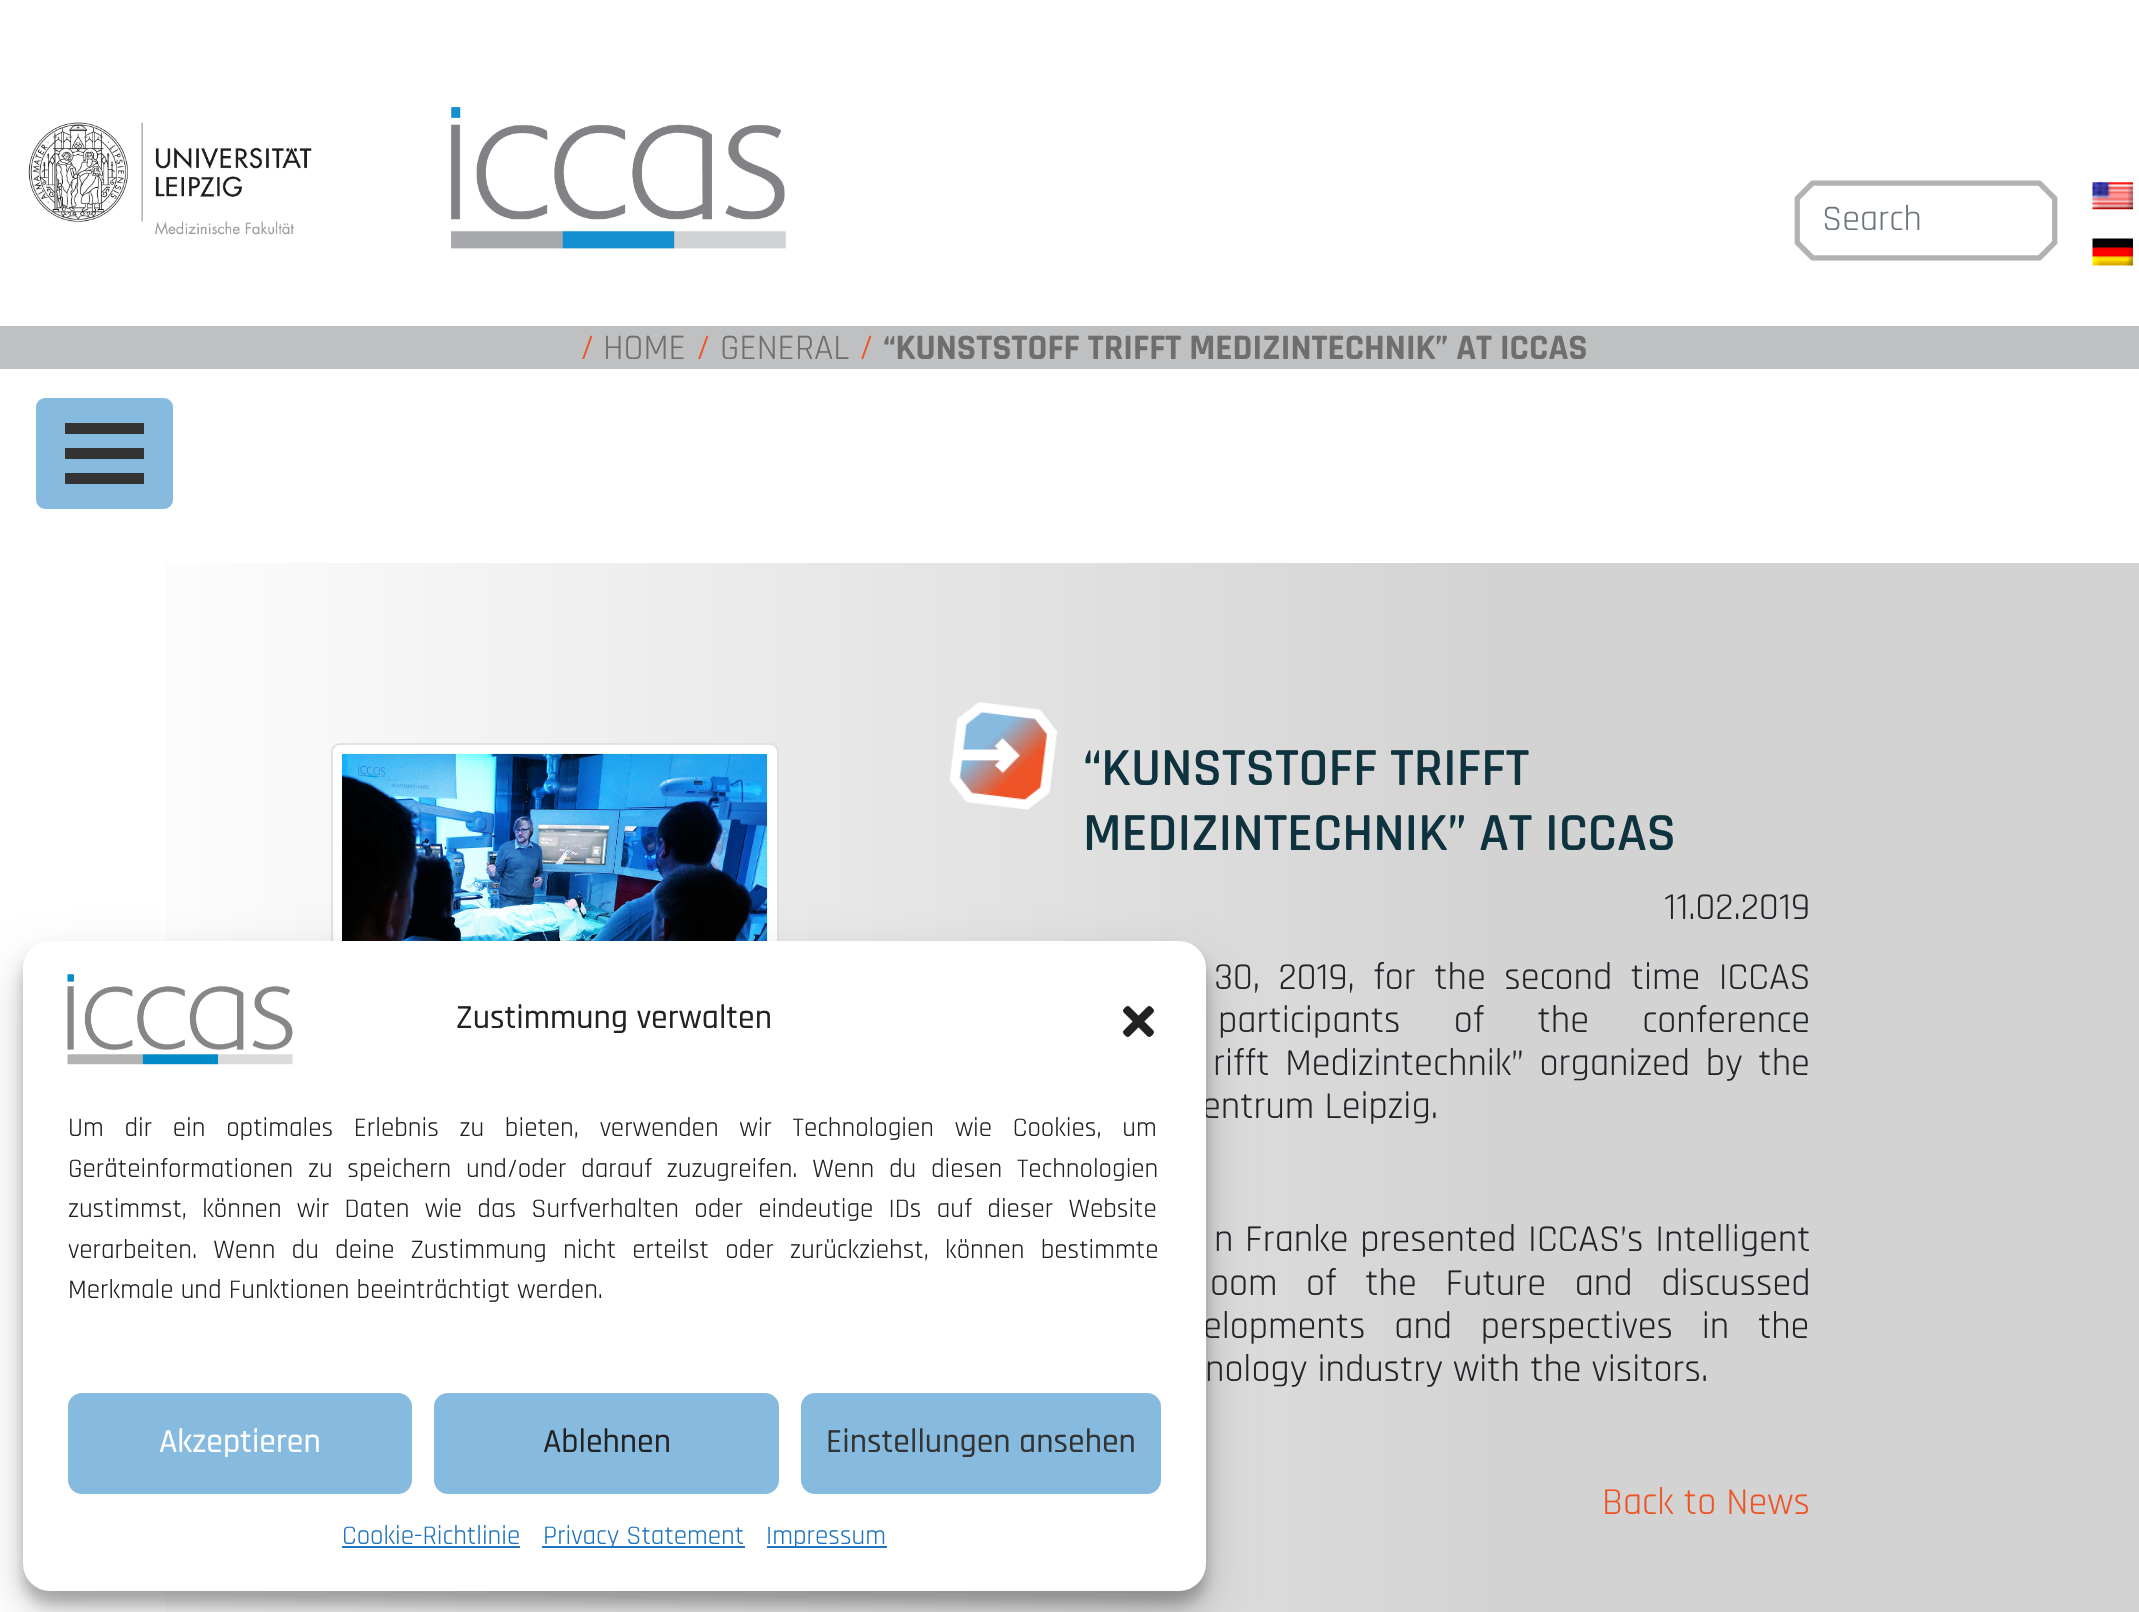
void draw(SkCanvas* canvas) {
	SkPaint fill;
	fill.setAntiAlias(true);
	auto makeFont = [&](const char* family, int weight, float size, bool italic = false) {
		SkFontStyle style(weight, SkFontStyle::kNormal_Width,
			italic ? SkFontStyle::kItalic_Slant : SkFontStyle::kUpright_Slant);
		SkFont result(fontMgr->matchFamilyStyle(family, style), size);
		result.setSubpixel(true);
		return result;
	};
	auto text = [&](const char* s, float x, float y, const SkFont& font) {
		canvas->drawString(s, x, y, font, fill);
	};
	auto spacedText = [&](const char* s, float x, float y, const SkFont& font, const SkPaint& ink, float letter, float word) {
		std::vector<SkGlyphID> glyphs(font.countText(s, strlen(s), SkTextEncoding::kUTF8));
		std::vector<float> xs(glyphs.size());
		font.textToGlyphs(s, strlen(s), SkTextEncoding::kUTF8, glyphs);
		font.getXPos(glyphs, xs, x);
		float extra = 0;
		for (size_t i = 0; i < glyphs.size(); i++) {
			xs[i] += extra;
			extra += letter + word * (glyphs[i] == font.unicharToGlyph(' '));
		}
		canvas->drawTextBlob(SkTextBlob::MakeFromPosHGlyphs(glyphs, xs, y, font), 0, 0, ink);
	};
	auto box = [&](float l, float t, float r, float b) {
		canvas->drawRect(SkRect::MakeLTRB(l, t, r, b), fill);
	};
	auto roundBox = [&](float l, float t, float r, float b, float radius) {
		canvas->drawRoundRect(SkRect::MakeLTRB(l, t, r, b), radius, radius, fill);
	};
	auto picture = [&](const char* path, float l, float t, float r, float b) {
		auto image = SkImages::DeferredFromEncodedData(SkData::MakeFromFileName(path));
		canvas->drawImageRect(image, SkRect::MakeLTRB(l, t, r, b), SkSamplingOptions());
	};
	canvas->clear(0xFFFFFFFF);
	picture("image0.png", 28, 122, 312, 235);
	picture("image1.png", 451, 107, 786, 249);
	picture("image2.png", 1794, 180, 2058, 261);
	picture("image3.png", 2092, 182, 2133, 210);
	picture("image4.png", 2092, 238, 2133, 266);
	fill.setColor(0xFFBFC0C1);
	box(0, 326, 2139, 369);
	fill.setColor(0xFF86BBDF);
	canvas->drawRoundRect(SkRect::MakeLTRB(37, 399, 172, 508), 8, 8, fill);
	fill.setStyle(SkPaint::kStroke_Style);
	fill.setStrokeWidth(2);
	canvas->drawRoundRect(SkRect::MakeLTRB(37, 399, 172, 508), 8, 8, fill);
	fill.setStyle(SkPaint::kFill_Style);
	fill.setColor(0xFF333333);
	box(65, 423, 144, 434);
	box(65, 448, 144, 459);
	box(65, 473, 144, 484);
	{
		const SkColor colors[] = {0xFFFFFFFF, 0xFFD3D3D3};
		const float stops[] = {0.04f, 0.7f};
		const SkPoint ends[] = {{0, 1116}, {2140, 1116}};
		fill.setShader(SkGradientShader::MakeLinear(ends, colors, stops, 2, SkTileMode::kClamp));
		fill.setAlpha(255);
	}
	box(166, 563, 2139, 1612);
	fill.setShader(nullptr);
	fill.setColor(0xFFFFFFFF);
	canvas->drawRoundRect(SkRect::MakeLTRB(332, 744, 778, 1023), 8, 8, fill);
	fill.setStyle(SkPaint::kStroke_Style);
	fill.setColor(0xFFDEE2E6);
	canvas->drawRoundRect(SkRect::MakeLTRB(332, 744, 778, 1023), 8, 8, fill);
	picture("image7.png", 342, 753, 768, 941);
	fill.setStyle(SkPaint::kFill_Style);
	fill.setColor(0x3B000000);
	fill.setMaskFilter(SkMaskFilter::MakeBlur(kNormal_SkBlurStyle, 7));
	canvas->drawRoundRect(SkRect::MakeLTRB(23, 954, 1206, 1604), 27, 27, fill);
	fill.setMaskFilter(nullptr);
	fill.setColor(0x30000000);
	fill.setMaskFilter(SkMaskFilter::MakeBlur(kNormal_SkBlurStyle, 22.5f));
	canvas->drawRoundRect(SkRect::MakeLTRB(23, 963, 1206, 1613), 27, 27, fill);
	fill.setMaskFilter(nullptr);
	picture("image8.png", 949, 702, 1058, 810);
	auto font1 = makeFont("Rajdhani", 400, 36);
	fill.setColor(0xFF6C757D);
	text("Search", 1822, 230, font1);
	fill.setColor(0xFFEE5427);
	text("/", 580, 359, font1);
	fill.setColor(0xFF6F6E6F);
	text("HOME", 603, 359, font1);
	fill.setColor(0xFFEE5427);
	text("/", 696, 359, font1);
	fill.setColor(0xFF6F6E6F);
	text("GENERAL", 720, 359, font1);
	fill.setColor(0xFFEE5427);
	text("/", 859, 359, font1);
	auto font2 = makeFont("Rajdhani", 700, 36);
	fill.setColor(0xFF6F6E6F);
	text("“KUNSTSTOFF TRIFFT MEDIZINTECHNIK” AT ICCAS", 883, 359, font2);
	auto font3 = makeFont("Rajdhani", 600, 54);
	fill.setColor(0xFF0E323E);
	text("“KUNSTSTOFF TRIFFT", 1083, 785, font3);
	text("MEDIZINTECHNIK” AT ICCAS", 1083, 850, font3);
	auto font4 = makeFont("Rajdhani", 400, 38.25f);
	fill.setColor(0xFF212529);
	text("11.02.2019", 1664, 919, font4);
	spacedText("30, 2019, for the second time ICCAS", 1214, 989, font4, fill, 0, 8.25f);
	spacedText("participants of the conference", 1218, 1032, font4, fill, 0, 43);
	spacedText("rifft Medizintechnik” organized by the", 1213, 1075, font4, fill, 0, 5.5f);
	text("entrum Leipzig.", 1202, 1118, font4);
	spacedText("n Franke presented ICCAS’s Intelligent", 1214, 1251, font4, fill, 0, 1.5f);
	spacedText("oom of the Future and discussed", 1210, 1295, font4, fill, 0, 18.5f);
	spacedText("elopments and perspectives in the", 1203, 1338, font4, fill, 0, 18.5f);
	fill.setColor(0xFFFFFFFF);
	roundBox(23, 941, 1206, 1591, 27);
	auto font5 = makeFont("Rajdhani", 400, 27);
	fill.setColor(0xFF222222);
	text("Merkmale und Funktionen beeinträchtigt werden.", 68, 1298, font5);
	spacedText("verarbeiten. Wenn du deine Zustimmung nicht erteilst oder zurückziehst, können bestimmte", 68, 1258, font5, fill, 0, 9);
	spacedText("zustimmst, können wir Daten wie das Surfverhalten oder eindeutige IDs auf dieser Website", 68, 1217, font5, fill, 0, 8);
	spacedText("Geräteinformationen zu speichern und/oder darauf zuzugreifen. Wenn du diesen Technologien", 68, 1177, font5, fill, 0, 7.5f);
	spacedText("Um dir ein optimales Erlebnis zu bieten, verwenden wir Technologien wie Cookies, um", 68, 1136, font5, fill, 0, 13.5f);
	picture("image6.png", 1123, 1006, 1154, 1037);
	fill.setColor(0xFF1E73BE);
	box(767, 1546, 887, 1548);
	text("Impressum", 766, 1544, font5);
	box(542, 1546, 745, 1548);
	text("Privacy Statement", 543, 1544, font5);
	text("Cookie-Richtlinie", 342, 1544, font5);
	box(342, 1546, 520, 1548);
	fill.setColor(0xFF86BBDF);
	canvas->drawRoundRect(SkRect::MakeLTRB(802, 1394, 1160, 1493), 13, 13, fill);
	fill.setStyle(SkPaint::kStroke_Style);
	canvas->drawRoundRect(SkRect::MakeLTRB(802, 1394, 1160, 1493), 13, 13, fill);
	auto font6 = makeFont("Rajdhani", 500, 33.75f);
	fill.setStyle(SkPaint::kFill_Style);
	fill.setColor(0xFF333333);
	text("Einstellungen ansehen", 826, 1452, font6);
	fill.setColor(0xFF86BBDF);
	canvas->drawRoundRect(SkRect::MakeLTRB(435, 1394, 778, 1493), 13, 13, fill);
	fill.setStyle(SkPaint::kStroke_Style);
	canvas->drawRoundRect(SkRect::MakeLTRB(435, 1394, 778, 1493), 13, 13, fill);
	fill.setStyle(SkPaint::kFill_Style);
	fill.setColor(0xFF222222);
	text("Ablehnen", 543, 1452, font6);
	fill.setColor(0xFF86BBDF);
	canvas->drawRoundRect(SkRect::MakeLTRB(69, 1394, 411, 1493), 13, 13, fill);
	fill.setStyle(SkPaint::kStroke_Style);
	canvas->drawRoundRect(SkRect::MakeLTRB(69, 1394, 411, 1493), 13, 13, fill);
	fill.setStyle(SkPaint::kFill_Style);
	fill.setColor(0xFFFFFFFF);
	text("Akzeptieren", 159, 1452, font6);
	fill.setColor(0xFF222222);
	text("Zustimmung verwalten", 456, 1028, font6);
	picture("image5.png", 67, 974, 293, 1065);
	fill.setColor(0xFF212529);
	text("nology industry with the visitors.", 1205, 1381, font4);
	fill.setColor(0xFFEE5427);
	text("Back to News", 1602, 1514, font4);
}
